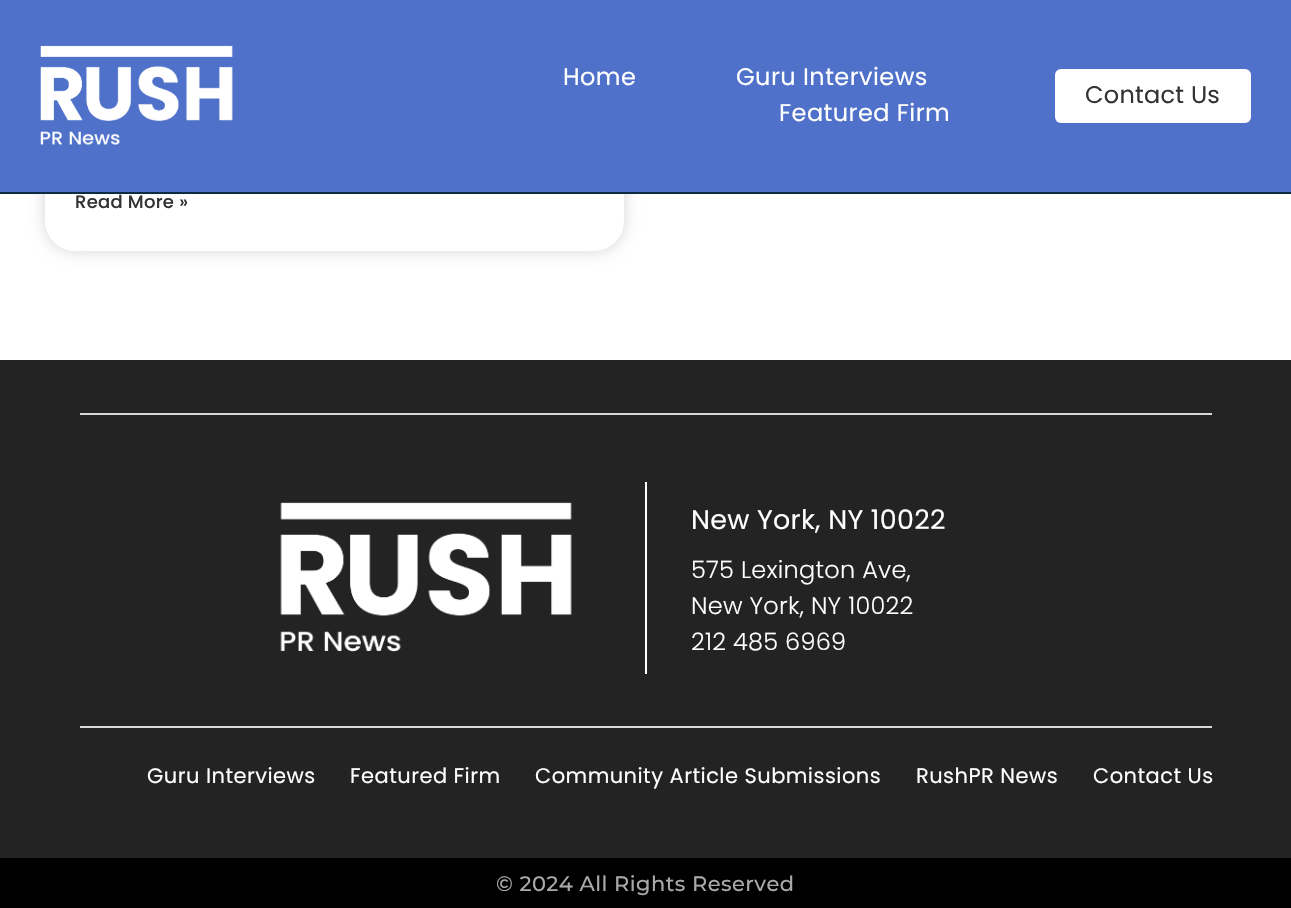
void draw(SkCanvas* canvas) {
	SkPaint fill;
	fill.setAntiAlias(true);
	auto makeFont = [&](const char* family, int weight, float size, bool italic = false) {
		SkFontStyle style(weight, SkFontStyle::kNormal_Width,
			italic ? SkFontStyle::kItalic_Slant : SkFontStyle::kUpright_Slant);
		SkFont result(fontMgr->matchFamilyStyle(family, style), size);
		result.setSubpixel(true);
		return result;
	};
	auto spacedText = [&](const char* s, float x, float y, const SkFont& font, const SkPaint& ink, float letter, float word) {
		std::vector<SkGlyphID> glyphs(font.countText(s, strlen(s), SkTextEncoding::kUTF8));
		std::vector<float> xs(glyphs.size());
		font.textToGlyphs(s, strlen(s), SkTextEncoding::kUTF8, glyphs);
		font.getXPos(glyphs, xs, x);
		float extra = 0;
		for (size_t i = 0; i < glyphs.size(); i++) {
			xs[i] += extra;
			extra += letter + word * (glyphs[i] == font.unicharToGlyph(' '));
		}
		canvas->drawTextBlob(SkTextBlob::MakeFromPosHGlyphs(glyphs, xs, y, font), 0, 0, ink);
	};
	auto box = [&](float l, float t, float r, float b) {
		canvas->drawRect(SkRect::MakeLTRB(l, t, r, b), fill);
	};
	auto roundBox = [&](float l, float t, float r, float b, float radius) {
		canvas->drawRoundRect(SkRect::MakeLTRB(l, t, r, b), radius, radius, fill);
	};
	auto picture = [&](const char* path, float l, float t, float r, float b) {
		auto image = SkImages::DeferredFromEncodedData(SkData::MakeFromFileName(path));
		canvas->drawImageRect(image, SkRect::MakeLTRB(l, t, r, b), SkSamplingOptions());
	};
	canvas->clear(0xFFFFFFFF);
	fill.setColor(0x2B000000);
	fill.setMaskFilter(SkMaskFilter::MakeBlur(kNormal_SkBlurStyle, 7.5f));
	canvas->drawRoundRect(SkRect::MakeLTRB(45, -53, 624, 251), 30, 30, fill);
	fill.setMaskFilter(nullptr);
	fill.setColor(0xFFFFFFFF);
	roundBox(45, -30, 624, 251, 30);
	fill.setColor(0xFF4F71C9);
	box(0, 0, 1291, 192);
	fill.setColor(0xFF0B2B42);
	box(0, 192, 1291, 194);
	picture("image0.png", 40, 45, 233, 145);
	fill.setColor(0xFFFFFFFF);
	roundBox(1055, 69, 1251, 123, 6);
	fill.setColor(0xFF232323);
	box(0, 360, 1291, 858);
	fill.setColor(0xFFD8D8D8);
	box(80, 413, 1212, 415);
	fill.setColor(0xFFFFFFFF);
	box(645, 482, 647, 674);
	picture("image1.png", 280, 502, 572, 652);
	fill.setColor(0xFFD8D8D8);
	box(80, 726, 1212, 728);
	fill.setColor(0xFF000000);
	box(0, 858, 1291, 908);
	auto font1 = makeFont("Poppins", 400, 24);
	fill.setColor(0xFFFFFFFF);
	spacedText("Home", 563, 85, font1, fill, 0.45f, 0);
	spacedText("Guru Interviews", 736, 85, font1, fill, 0.45f, 0);
	spacedText("Featured Firm", 779, 121, font1, fill, 0.45f, 0);
	fill.setColor(0xFF333333);
	spacedText("Contact Us", 1085, 103, font1, fill, 0.25f, 0);
	auto font2 = makeFont("Poppins", 500, 18);
	spacedText("Read More »", 75, 208, font2, fill, 0.25f, 0);
	auto font3 = makeFont("Poppins", 400, 27);
	fill.setColor(0xFFFFFFFF);
	spacedText("New York, NY 10022", 691, 529, font3, fill, 0.25f, 0);
	auto font4 = makeFont("Poppins", 300, 24);
	spacedText("575 Lexington Ave,", 691, 578, font4, fill, 0.25f, 0);
	spacedText("New York, NY 10022", 691, 614, font4, fill, 0.25f, 0);
	spacedText("212 485 6969", 691, 650, font4, fill, 0.25f, 0);
	auto font5 = makeFont("Poppins", 400, 21);
	spacedText("Guru Interviews", 147, 783, font5, fill, 0.45f, 0);
	spacedText("Featured Firm", 350, 783, font5, fill, 0.45f, 0);
	spacedText("Community Article Submissions", 535, 783, font5, fill, 0.45f, 0);
	spacedText("RushPR News", 916, 783, font5, fill, 0.45f, 0);
	spacedText("Contact Us", 1093, 783, font5, fill, 0.45f, 0);
	auto font6 = makeFont("Montserrat", 500, 21);
	fill.setColor(0xFFA8A8A8);
	spacedText("© 2024 All Rights Reserved", 496, 891, font6, fill, 0.45f, 0);
}
